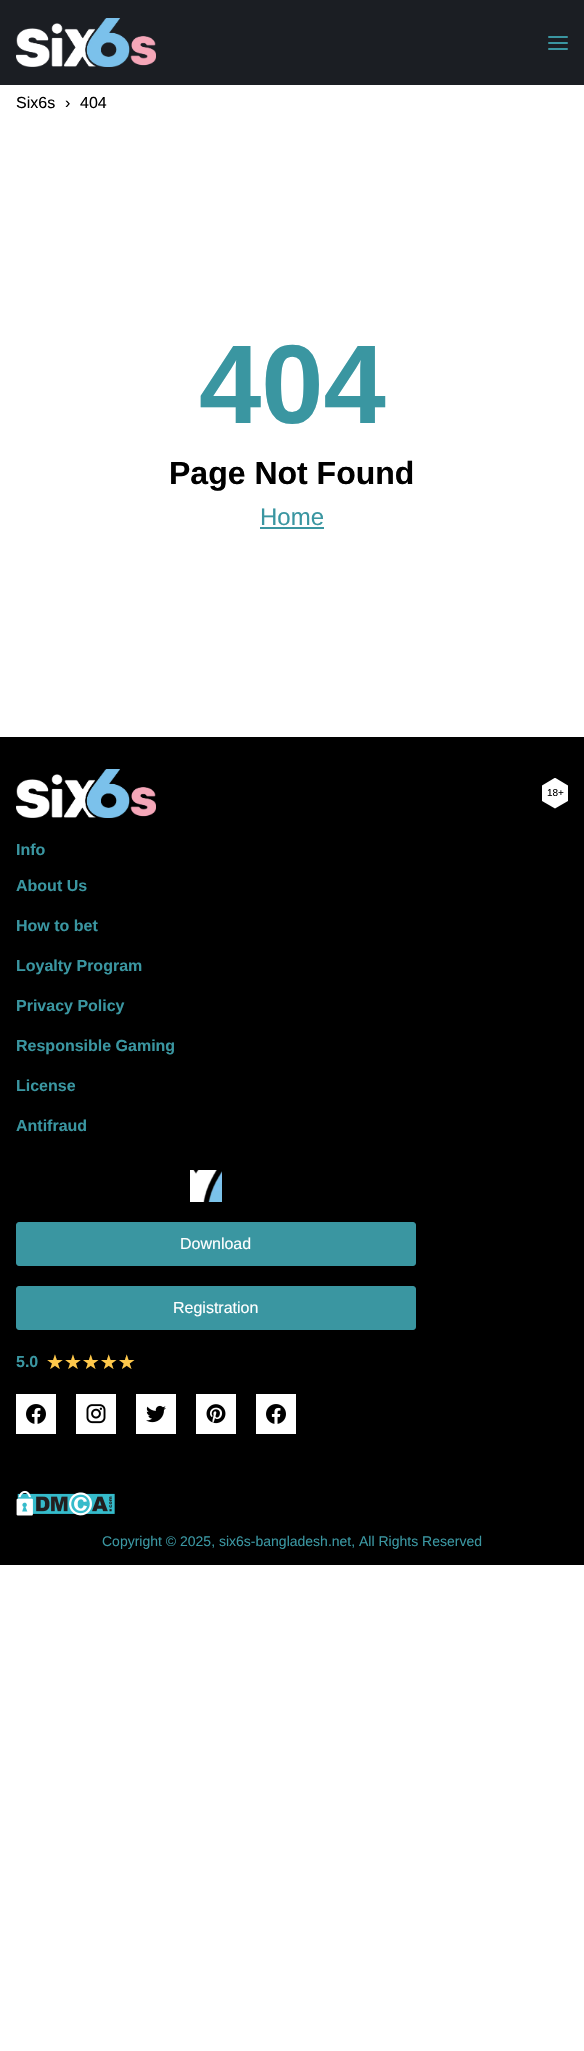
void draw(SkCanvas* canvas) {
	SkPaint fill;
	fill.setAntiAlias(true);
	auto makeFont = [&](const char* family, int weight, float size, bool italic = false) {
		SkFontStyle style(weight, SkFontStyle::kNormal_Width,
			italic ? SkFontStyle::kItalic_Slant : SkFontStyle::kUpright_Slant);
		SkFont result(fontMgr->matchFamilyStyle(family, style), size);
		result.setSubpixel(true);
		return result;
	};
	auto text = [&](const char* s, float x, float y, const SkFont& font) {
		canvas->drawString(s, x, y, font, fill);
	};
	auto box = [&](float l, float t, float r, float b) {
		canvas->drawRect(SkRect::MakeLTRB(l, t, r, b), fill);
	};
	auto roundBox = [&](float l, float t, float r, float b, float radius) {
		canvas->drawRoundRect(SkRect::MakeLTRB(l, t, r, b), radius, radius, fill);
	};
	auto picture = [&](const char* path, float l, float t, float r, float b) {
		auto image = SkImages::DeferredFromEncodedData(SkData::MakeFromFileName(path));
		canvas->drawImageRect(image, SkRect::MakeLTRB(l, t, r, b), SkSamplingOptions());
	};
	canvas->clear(0xFFFFFFFF);
	fill.setColor(0xFF1B1E23);
	box(0, 0, 584, 85);
	picture("image0.png", 16, 18, 156, 67);
	fill.setColor(0xFF3A96A1);
	roundBox(548, 36, 568, 38, 1);
	roundBox(548, 42, 568, 44, 1);
	roundBox(548, 48, 568, 50, 1);
	box(260, 527, 324, 529);
	fill.setColor(0xFF000000);
	box(0, 737, 584, 1565);
	picture("image1.png", 16, 769, 156, 818);
	fill.setColor(0xFFFFFFFF);
	canvas->drawPath(SkPathBuilder().moveTo(542, 785.5f).lineTo(542, 801).lineTo(555, 808.5f).lineTo(568, 801).lineTo(568, 785.5f).lineTo(555.5f, 778).lineTo(554.5f, 778).close().detach(), fill);
	picture("image2.png", 190, 1170, 222, 1202);
	fill.setColor(0xFF3A96A1);
	canvas->drawRoundRect(SkRect::MakeLTRB(16.5f, 1222.5f, 415.5f, 1265.5f), 2.5f, 2.5f, fill);
	fill.setStyle(SkPaint::kStroke_Style);
	fill.setStrokeWidth(1);
	canvas->drawRoundRect(SkRect::MakeLTRB(16.5f, 1222.5f, 415.5f, 1265.5f), 2.5f, 2.5f, fill);
	fill.setStyle(SkPaint::kFill_Style);
	canvas->drawRoundRect(SkRect::MakeLTRB(16.5f, 1286.5f, 415.5f, 1329.5f), 2.5f, 2.5f, fill);
	fill.setStyle(SkPaint::kStroke_Style);
	canvas->drawRoundRect(SkRect::MakeLTRB(16.5f, 1286.5f, 415.5f, 1329.5f), 2.5f, 2.5f, fill);
	fill.setStyle(SkPaint::kFill_Style);
	fill.setColor(0xFFFFFFFF);
	box(16, 1394, 56, 1434);
	picture("image3.png", 26, 1404, 46, 1424);
	box(76, 1394, 116, 1434);
	picture("image4.png", 86, 1404, 106, 1424);
	box(136, 1394, 176, 1434);
	picture("image5.png", 146, 1405, 166, 1423);
	box(196, 1394, 236, 1434);
	picture("image6.png", 206, 1404, 226, 1424);
	box(256, 1394, 296, 1434);
	picture("image3.png", 266, 1404, 286, 1424);
	picture("image7.png", 16, 1490, 115, 1516);
	auto font1 = makeFont("Liberation Sans", 400, 16);
	fill.setColor(0xFF000000);
	text("Six6s", 16, 108, font1);
	text("›", 65, 108, font1);
	text("404", 80, 108, font1);
	auto font2 = makeFont("Liberation Sans", 700, 112);
	fill.setColor(0xFF3A96A1);
	text("404", 199, 423, font2);
	auto font3 = makeFont("Liberation Sans", 700, 32);
	fill.setColor(0xFF000000);
	text("Page Not Found", 169, 484, font3);
	auto font4 = makeFont("Liberation Sans", 400, 24);
	fill.setColor(0xFF3A96A1);
	text("Home", 260, 525, font4);
	auto font5 = makeFont("Liberation Sans", 400, 10);
	fill.setColor(0xFF000000);
	text("18+", 547, 796, font5);
	auto font6 = makeFont("Liberation Sans", 700, 16);
	fill.setColor(0xFF3A96A1);
	text("Info", 16, 855, font6);
	text("About Us", 16, 891, font6);
	text("How to bet", 16, 931, font6);
	text("Loyalty Program", 16, 971, font6);
	text("Privacy Policy", 16, 1011, font6);
	text("Responsible Gaming", 16, 1051, font6);
	text("License", 16, 1091, font6);
	text("Antifraud", 16, 1131, font6);
	fill.setColor(0xFFFFFFFF);
	text("Download", 180, 1249, font1);
	text("Registration", 173, 1313, font1);
	fill.setColor(0xFF3A96A1);
	text("5.0", 16, 1367, font6);
	auto font7 = makeFont("DejaVu Sans", 400, 20);
	{
		const SkColor colors[] = {0xFFFEC84B, 0xFFD0D5DD};
		const float stops[] = {1, 1};
		const SkPoint ends[] = {{46, 1362}, {136, 1362}};
		fill.setShader(SkGradientShader::MakeLinear(ends, colors, stops, 2, SkTileMode::kClamp));
		fill.setAlpha(255);
	}
	text("★★★★★", 46, 1369, font7);
	auto font8 = makeFont("Liberation Sans", 400, 14);
	fill.setShader(nullptr);
	fill.setColor(0xFF3A96A1);
	text("Copyright © 2025, six6s-bangladesh.net, All Rights Reserved", 102, 1546, font8);
}
